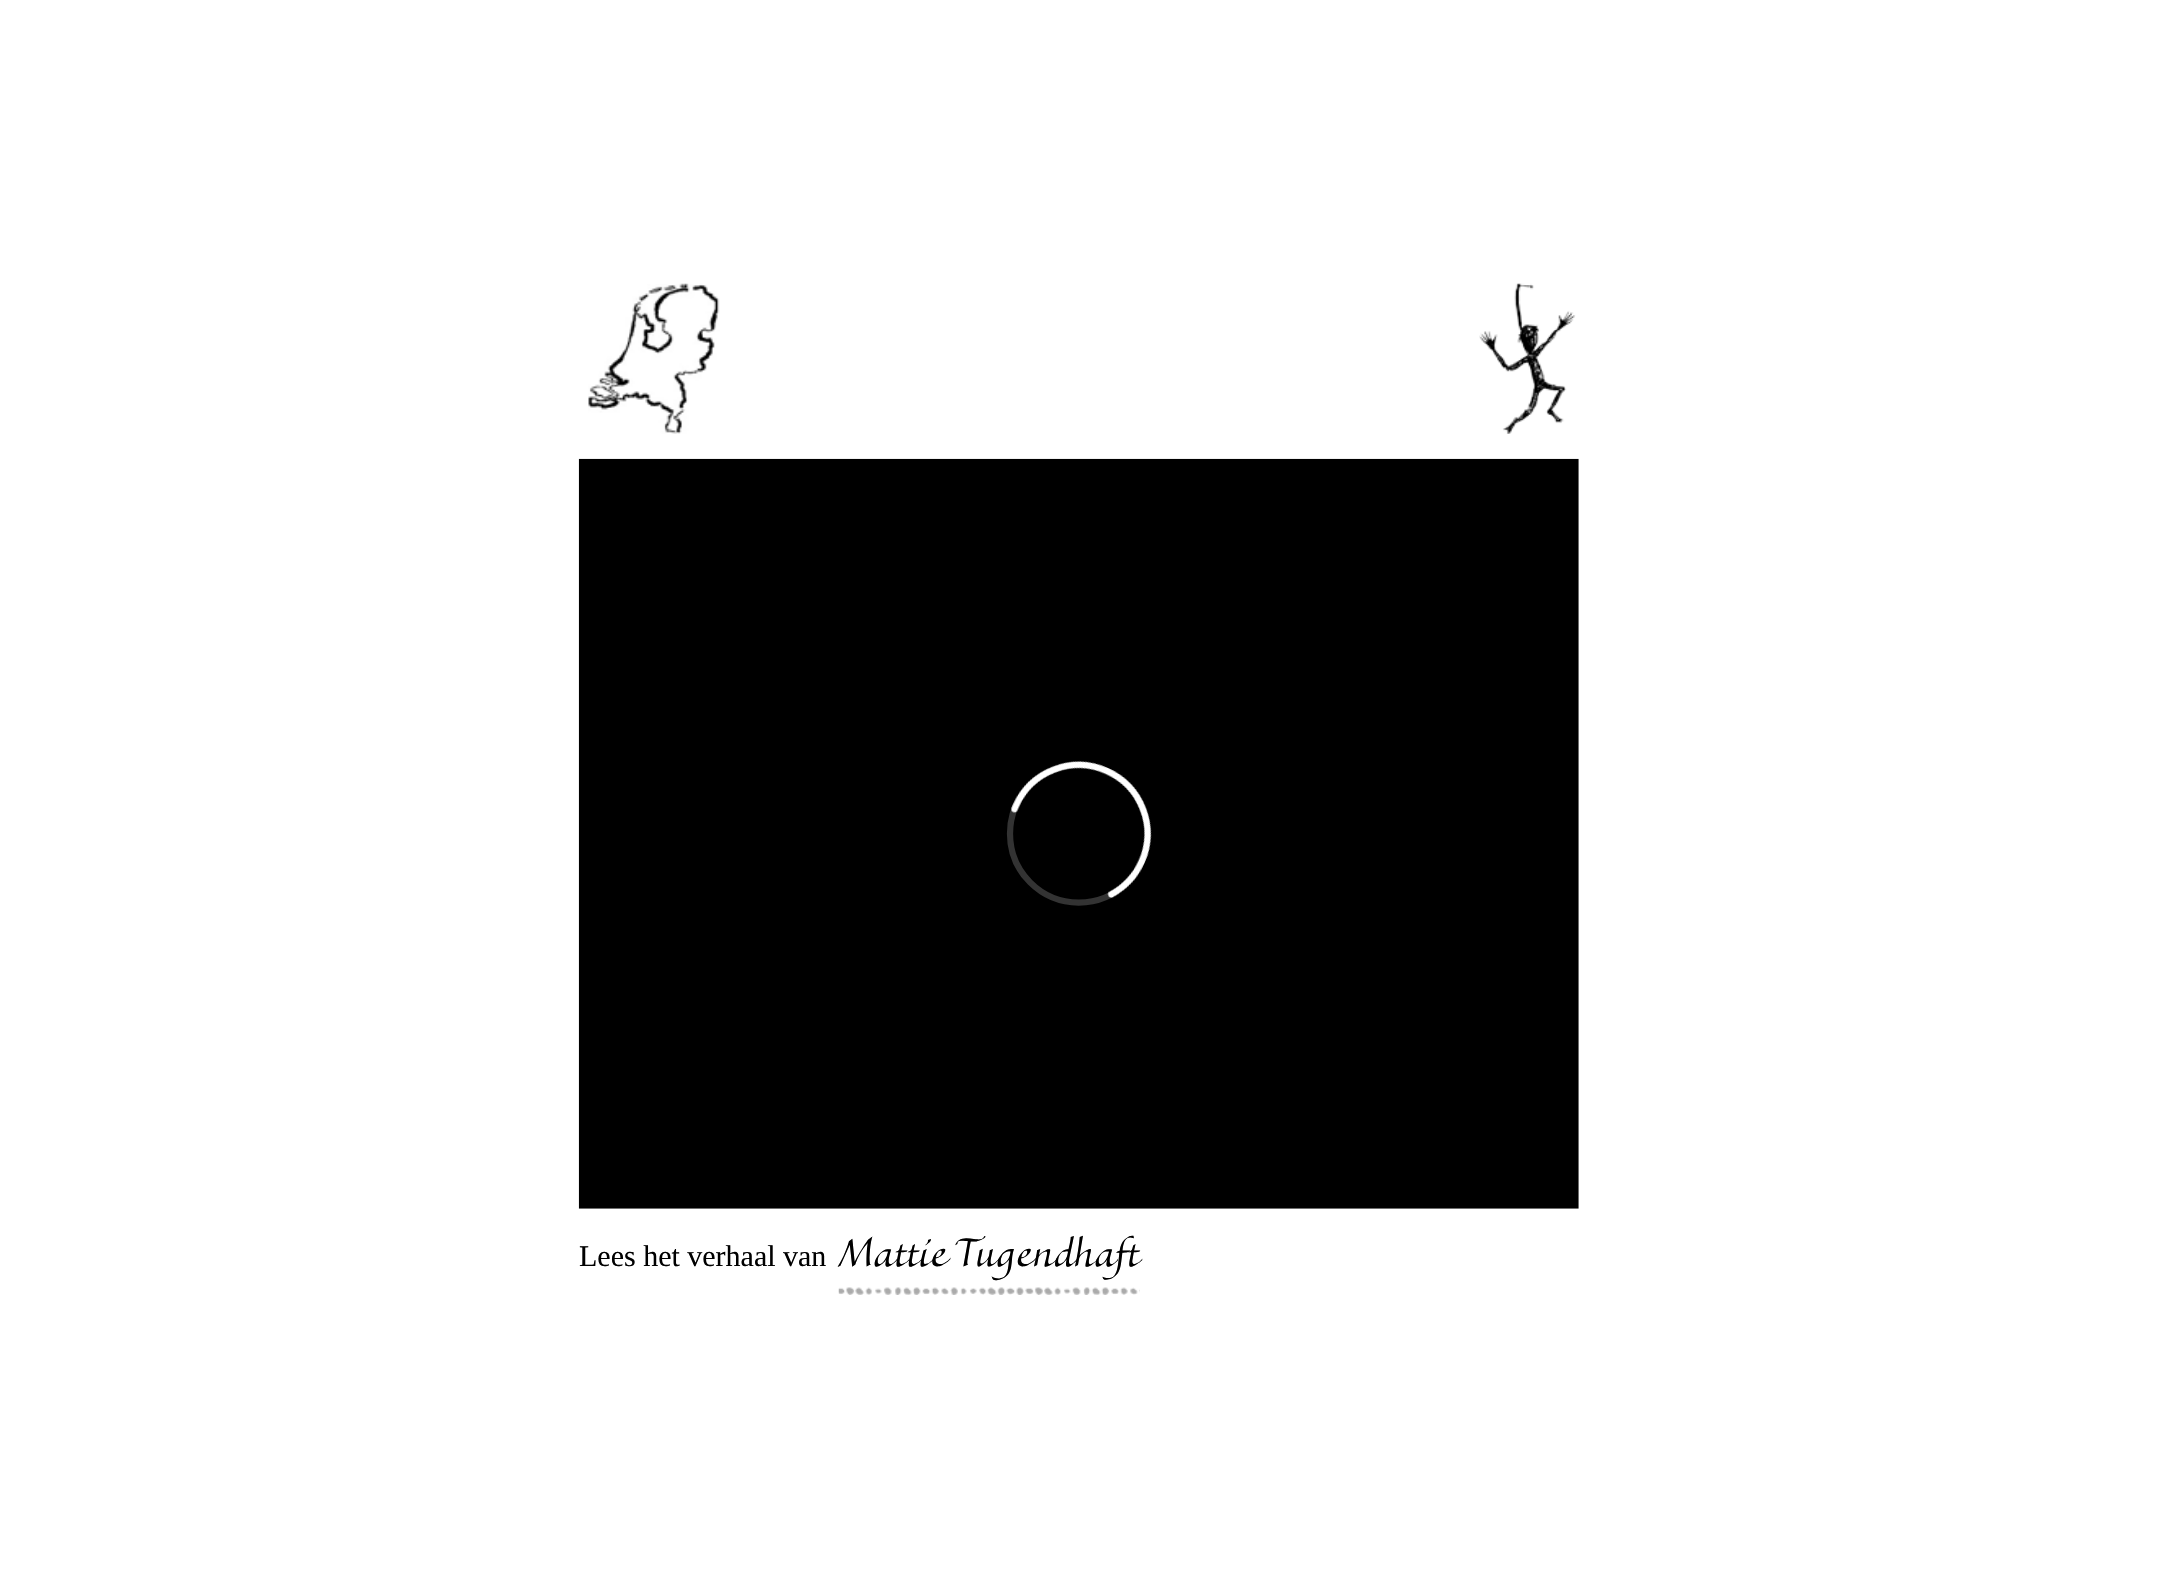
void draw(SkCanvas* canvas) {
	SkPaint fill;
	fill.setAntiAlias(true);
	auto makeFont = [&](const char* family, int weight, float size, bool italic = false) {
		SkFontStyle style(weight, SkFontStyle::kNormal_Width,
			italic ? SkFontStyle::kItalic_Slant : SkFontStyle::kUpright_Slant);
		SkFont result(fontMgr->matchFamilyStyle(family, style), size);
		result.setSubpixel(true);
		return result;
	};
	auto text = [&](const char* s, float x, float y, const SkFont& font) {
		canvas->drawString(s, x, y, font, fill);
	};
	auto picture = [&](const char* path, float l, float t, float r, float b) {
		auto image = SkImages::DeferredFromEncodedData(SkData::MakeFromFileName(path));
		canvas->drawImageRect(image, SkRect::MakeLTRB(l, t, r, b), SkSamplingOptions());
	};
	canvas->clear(0xFFFFFFFF);
	picture("image0.png", 588, 283, 720, 434);
	picture("image1.png", 1479, 283, 1576, 434);
	picture("image2.png", 578, 458, 1579, 1209);
	picture("image3.png", 838, 1287, 1140, 1295);
	auto font1 = makeFont("Liberation Serif", 400, 30);
	fill.setColor(0xFF000000);
	text("Lees het verhaal van", 579, 1266, font1);
	auto font2 = makeFont("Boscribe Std", 400, 45);
	text("Mattie Tugendhaft", 838, 1266, font2);
}
